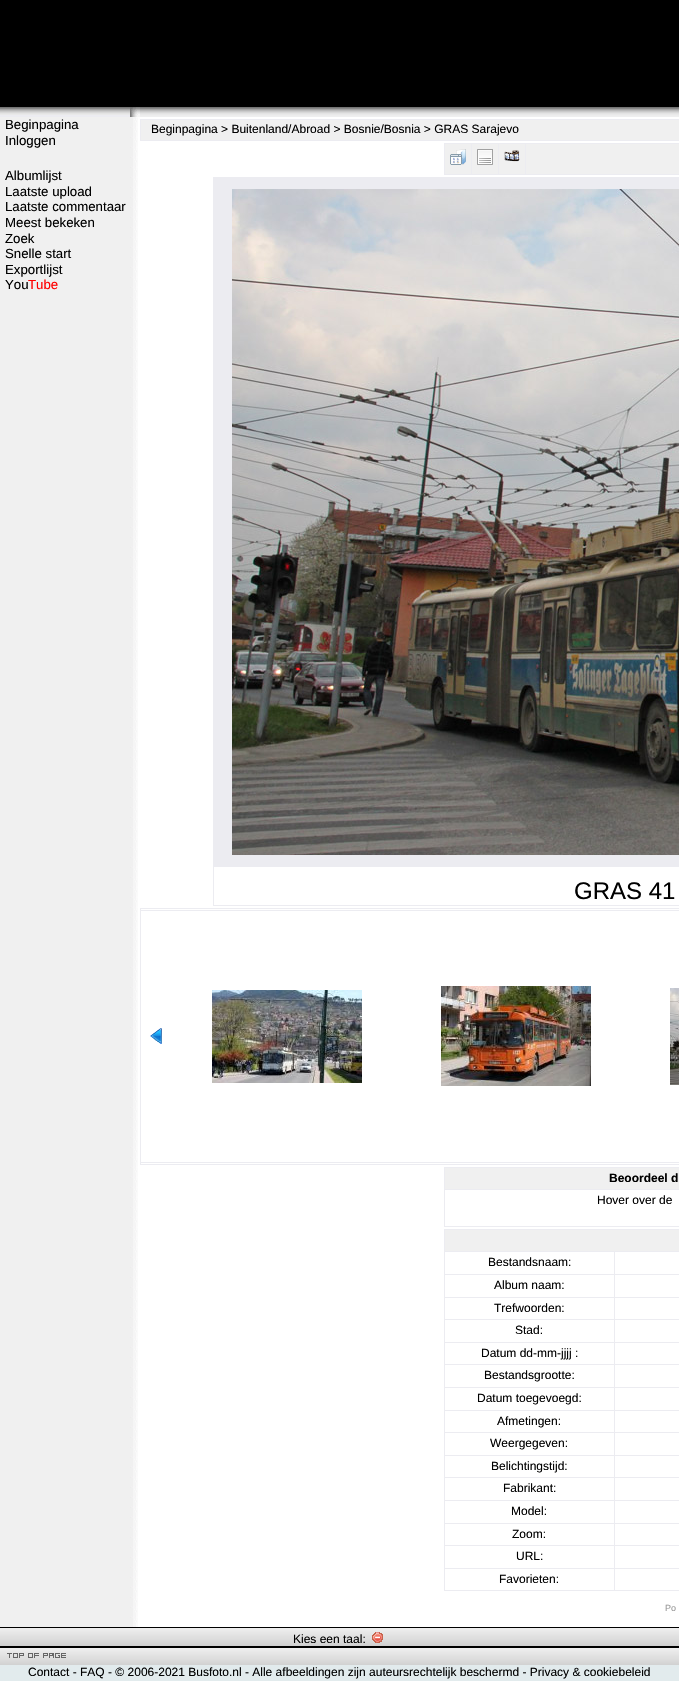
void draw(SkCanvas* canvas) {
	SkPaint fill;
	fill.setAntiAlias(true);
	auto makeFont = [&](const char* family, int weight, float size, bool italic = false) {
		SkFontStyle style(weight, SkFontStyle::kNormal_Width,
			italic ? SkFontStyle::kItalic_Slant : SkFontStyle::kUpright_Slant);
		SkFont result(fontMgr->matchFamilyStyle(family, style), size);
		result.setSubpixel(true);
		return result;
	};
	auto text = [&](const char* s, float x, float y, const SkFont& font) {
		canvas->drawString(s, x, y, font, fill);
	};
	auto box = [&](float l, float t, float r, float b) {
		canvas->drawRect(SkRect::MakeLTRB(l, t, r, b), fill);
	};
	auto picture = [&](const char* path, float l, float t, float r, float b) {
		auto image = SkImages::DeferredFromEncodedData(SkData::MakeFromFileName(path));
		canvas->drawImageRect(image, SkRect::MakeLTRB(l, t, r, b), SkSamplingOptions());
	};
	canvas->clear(0xFFE2EBED);
	fill.setColor(0xFF000000);
	box(0, 0, 679, 107);
	fill.setColor(0xFFECECF1);
	box(0, 115, 130, 117);
	picture("image0.png", 0, 107, 130, 115);
	picture("image1.png", 130, 107, 140, 117);
	picture("image2.png", 140, 107, 679, 117);
	fill.setColor(0xFFF0F0F0);
	box(0, 117, 130, 1627);
	picture("image3.png", 130, 117, 140, 1627);
	fill.setColor(0xFFFFFFFF);
	box(140, 117, 679, 1627);
	fill.setColor(0xFFECECF1);
	box(140, 119, 679, 141);
	fill.setColor(0xFFF0F0F0);
	box(141, 120, 679, 140);
	fill.setColor(0xFFECECF1);
	box(444, 143, 679, 175);
	fill.setColor(0xFFF0F0F0);
	box(445, 144, 471, 174);
	picture("image4.png", 450, 149, 466, 165);
	box(472, 144, 498, 174);
	picture("image5.png", 477, 149, 493, 165);
	box(499, 144, 525, 174);
	picture("image6.png", 504, 150, 520, 162);
	box(526, 144, 679, 174);
	fill.setColor(0xFFECECF1);
	box(213, 177, 679, 906);
	picture("image7.png", 232, 189, 679, 855);
	fill.setColor(0xFFFFFFFF);
	box(214, 867, 679, 905);
	fill.setColor(0xFFECECF1);
	box(140, 908, 679, 1165);
	fill.setColor(0xFFFFFFFF);
	box(141, 909, 679, 910);
	box(141, 911, 679, 1162);
	picture("image8.png", 150, 1028, 162, 1044);
	picture("image9.png", 212, 990, 362, 1083);
	picture("image10.png", 441, 986, 591, 1086);
	picture("image11.png", 670, 988, 679, 1085);
	box(141, 1163, 679, 1164);
	fill.setColor(0xFFECECF1);
	box(444, 1167, 679, 1227);
	fill.setColor(0xFFF0F0F0);
	box(445, 1168, 679, 1189);
	fill.setColor(0xFFFFFFFF);
	box(445, 1190, 679, 1226);
	fill.setColor(0xFFECECF1);
	box(444, 1229, 679, 1591);
	fill.setColor(0xFFF0F0F0);
	box(445, 1230, 679, 1251);
	fill.setColor(0xFFFFFFFF);
	box(445, 1252, 614, 1274);
	box(615, 1252, 679, 1274);
	box(445, 1275, 614, 1297);
	box(615, 1275, 679, 1297);
	box(445, 1298, 614, 1319);
	box(615, 1298, 679, 1319);
	box(445, 1320, 614, 1342);
	box(615, 1320, 679, 1342);
	box(445, 1343, 614, 1364);
	box(615, 1343, 679, 1364);
	box(445, 1365, 614, 1387);
	box(615, 1365, 679, 1387);
	box(445, 1388, 614, 1410);
	box(615, 1388, 679, 1410);
	box(445, 1411, 614, 1432);
	box(615, 1411, 679, 1432);
	box(445, 1433, 614, 1455);
	box(615, 1433, 679, 1455);
	box(445, 1456, 614, 1477);
	box(615, 1456, 679, 1477);
	box(445, 1478, 614, 1500);
	box(615, 1478, 679, 1500);
	box(445, 1501, 614, 1523);
	box(615, 1501, 679, 1523);
	box(445, 1524, 614, 1545);
	box(615, 1524, 679, 1545);
	box(445, 1546, 614, 1568);
	box(615, 1546, 679, 1568);
	box(445, 1569, 614, 1590);
	box(615, 1569, 679, 1590);
	picture("image12.png", 0, 1627, 679, 1647);
	picture("image13.png", 372, 1632, 383, 1643);
	picture("image14.png", 0, 1647, 647, 1665);
	picture("image15.png", 7, 1653, 66, 1658);
	picture("image16.png", 647, 1647, 679, 1665);
	auto font1 = makeFont("Liberation Sans", 400, 13.25f);
	fill.setColor(0xFF000000);
	text("Beginpagina", 5, 129, font1);
	text("Inloggen", 5, 145, font1);
	text("Albumlijst", 5, 180, font1);
	text("Laatste upload", 5, 196, font1);
	text("Laatste commentaar", 5, 211, font1);
	text("Meest bekeken", 5, 227, font1);
	text("Zoek", 5, 243, font1);
	text("Snelle start", 5, 258, font1);
	text("Exportlijst", 5, 274, font1);
	text("You", 5, 289, font1);
	fill.setColor(0xFFFF0000);
	text("Tube", 28, 289, font1);
	auto font2 = makeFont("Liberation Sans", 400, 12);
	fill.setColor(0xFF000000);
	text("Beginpagina > Buitenland/Abroad > Bosnie/Bosnia > GRAS Sarajevo", 151, 133, font2);
	auto font3 = makeFont("Liberation Sans", 400, 24);
	text("GRAS 41", 574, 899, font3);
	auto font4 = makeFont("Liberation Sans", 700, 12);
	text("Beoordeel d", 609, 1182, font4);
	text("Hover over de", 597, 1204, font2);
	text("Bestandsnaam:", 488, 1266, font2);
	text("Album naam:", 494, 1289, font2);
	text("Trefwoorden:", 494, 1312, font2);
	text("Stad:", 515, 1334, font2);
	text("Datum dd-mm-jjjj :", 481, 1357, font2);
	text("Bestandsgrootte:", 484, 1379, font2);
	text("Datum toegevoegd:", 477, 1402, font2);
	text("Afmetingen:", 497, 1425, font2);
	text("Weergegeven:", 490, 1447, font2);
	text("Belichtingstijd:", 491, 1470, font2);
	text("Fabrikant:", 503, 1492, font2);
	text("Model:", 511, 1515, font2);
	text("Zoom:", 512, 1538, font2);
	text("URL:", 516, 1560, font2);
	text("Favorieten:", 499, 1583, font2);
	auto font5 = makeFont("Liberation Sans", 400, 9);
	fill.setColor(0xFF999999);
	text("Po", 665, 1611, font5);
	fill.setColor(0xFF000000);
	text("Kies een taal:", 293, 1643, font2);
	text("Contact - FAQ - © 2006-2021 Busfoto.nl - Alle afbeeldingen zijn auteursrechtelijk beschermd - Privacy & cookiebeleid", 28, 1676, font2);
}
